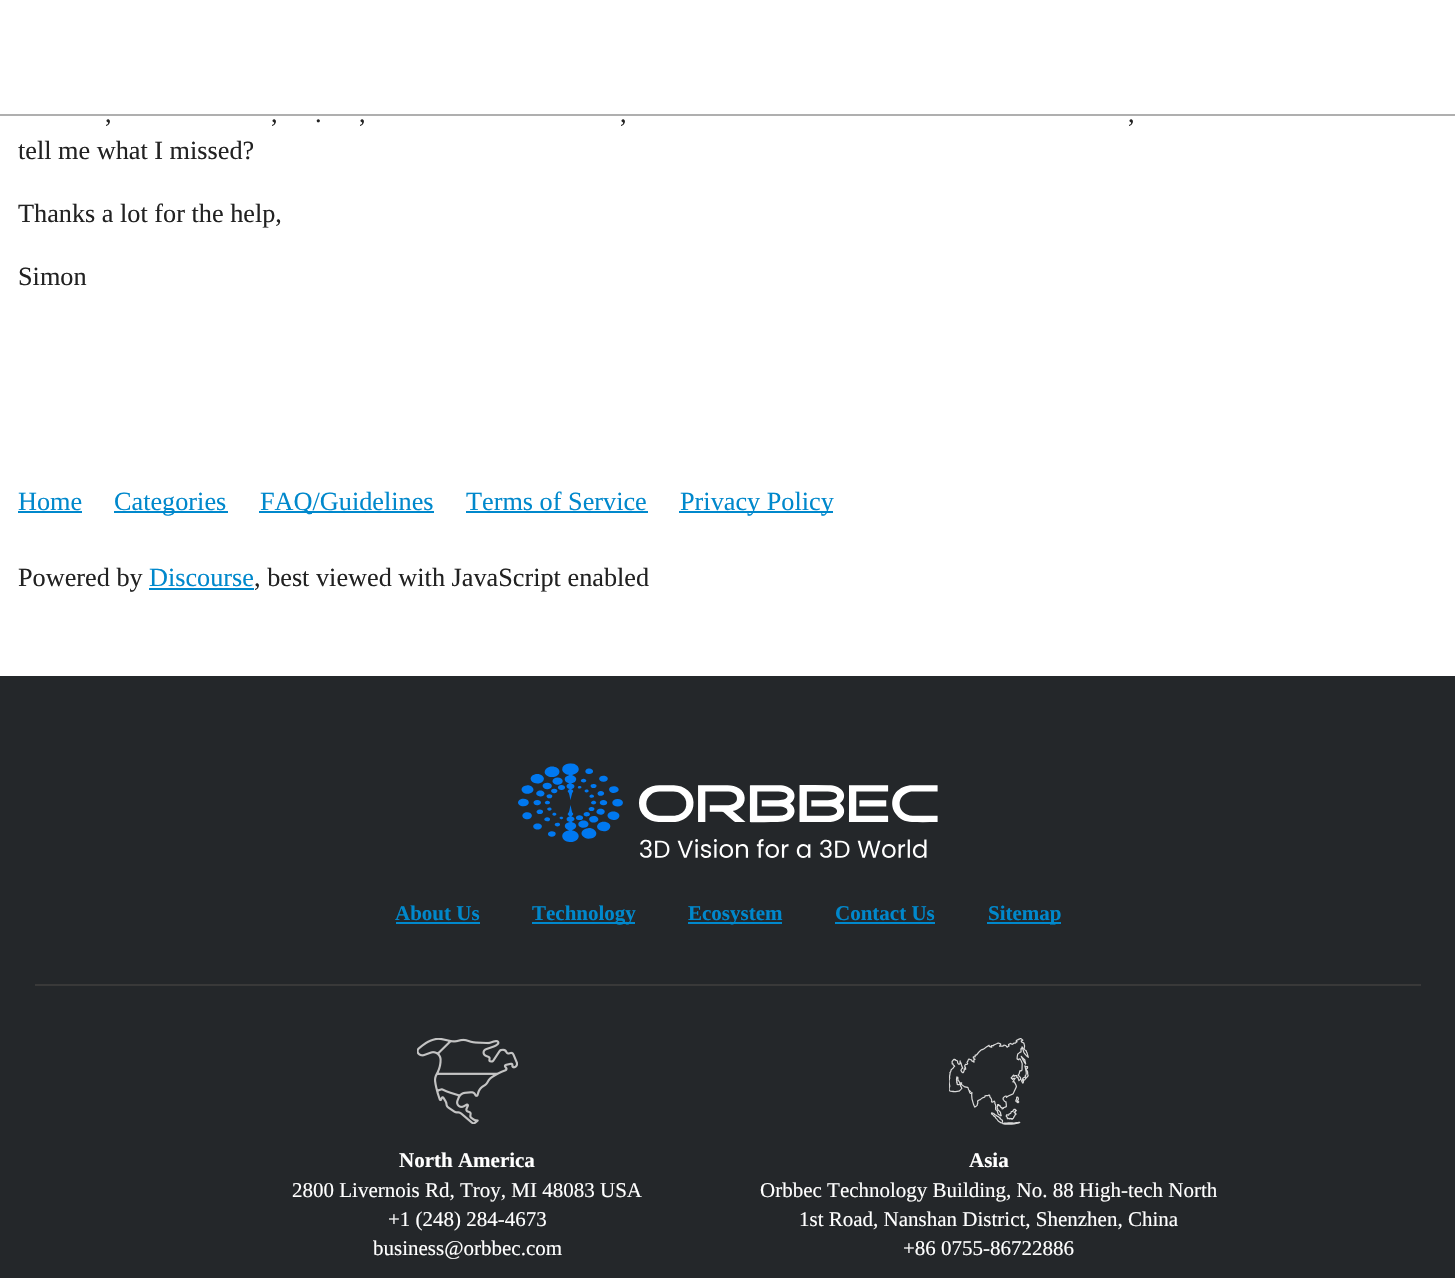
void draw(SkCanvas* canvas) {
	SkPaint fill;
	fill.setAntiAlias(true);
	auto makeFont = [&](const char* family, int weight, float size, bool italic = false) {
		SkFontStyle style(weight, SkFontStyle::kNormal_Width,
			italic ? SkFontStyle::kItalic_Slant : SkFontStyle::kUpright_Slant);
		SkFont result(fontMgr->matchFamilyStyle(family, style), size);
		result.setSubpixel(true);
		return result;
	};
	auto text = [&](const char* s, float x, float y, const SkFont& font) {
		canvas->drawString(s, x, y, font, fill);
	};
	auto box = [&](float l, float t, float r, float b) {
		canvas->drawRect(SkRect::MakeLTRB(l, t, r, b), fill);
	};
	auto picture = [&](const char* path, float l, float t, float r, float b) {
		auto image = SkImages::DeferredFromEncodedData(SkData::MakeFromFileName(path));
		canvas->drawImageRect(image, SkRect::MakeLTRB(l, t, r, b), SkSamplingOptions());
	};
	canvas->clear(0xFFFFFFFF);
	fill.setColor(0xFFAFAFAF);
	box(0, 114, 1455, 116);
	fill.setColor(0xFF0088CC);
	box(18, 511, 82, 513);
	box(114, 511, 228, 513);
	box(259, 511, 434, 513);
	box(466, 511, 648, 513);
	box(679, 511, 833, 513);
	box(149, 588, 254, 590);
	fill.setColor(0xFF24272A);
	box(0, 676, 1455, 1278);
	fill.setColor(0xFF393939);
	box(35, 984, 1421, 986);
	picture("image0.png", 518, 763, 938, 858);
	fill.setColor(0xFF0088CC);
	box(396, 922, 480, 924);
	box(532, 922, 635, 924);
	box(688, 922, 782, 924);
	box(835, 922, 935, 924);
	box(987, 922, 1061, 924);
	picture("image1.png", 417, 1038, 518, 1124);
	picture("image2.png", 949, 1038, 1029, 1125);
	auto font1 = makeFont("Liberation Serif", 400, 26.25f);
	fill.setColor(0xFF222222);
	text(",", 105, 122, font1);
	text(",", 271, 122, font1);
	text(".", 315, 122, font1);
	text(",", 359, 122, font1);
	text(",", 620, 122, font1);
	text(",", 1128, 122, font1);
	text("tell me what I missed?", 18, 159, font1);
	text("Thanks a lot for the help,", 18, 222, font1);
	text("Simon", 18, 285, font1);
	fill.setColor(0xFF0088CC);
	text("Home", 18, 510, font1);
	text("Categories", 114, 510, font1);
	text("FAQ/Guidelines", 260, 510, font1);
	text("Terms of Service", 466, 510, font1);
	text("Privacy Policy", 680, 510, font1);
	fill.setColor(0xFF222222);
	text("Powered by", 18, 586, font1);
	fill.setColor(0xFF0088CC);
	text("Discourse", 149, 586, font1);
	fill.setColor(0xFF222222);
	text(", best viewed with JavaScript enabled", 254, 586, font1);
	auto font2 = makeFont("Liberation Serif", 700, 21);
	fill.setColor(0xFF0088CC);
	text("About Us", 395, 920, font2);
	text("Technology", 532, 920, font2);
	text("Ecosystem", 688, 920, font2);
	text("Contact Us", 835, 920, font2);
	text("Sitemap", 988, 920, font2);
	fill.setColor(0xFFFFFFFF);
	text("North America", 399, 1167, font2);
	auto font3 = makeFont("Liberation Serif", 400, 21);
	text("2800 Livernois Rd, Troy, MI 48083 USA", 292, 1197, font3);
	text("+1 (248) 284-4673", 388, 1226, font3);
	text("business@orbbec.com", 373, 1255, font3);
	text("Asia", 969, 1167, font2);
	text("Orbbec Technology Building, No. 88 High-tech North", 760, 1197, font3);
	text("1st Road, Nanshan District, Shenzhen, China", 799, 1226, font3);
	text("+86 0755-86722886", 903, 1255, font3);
}
